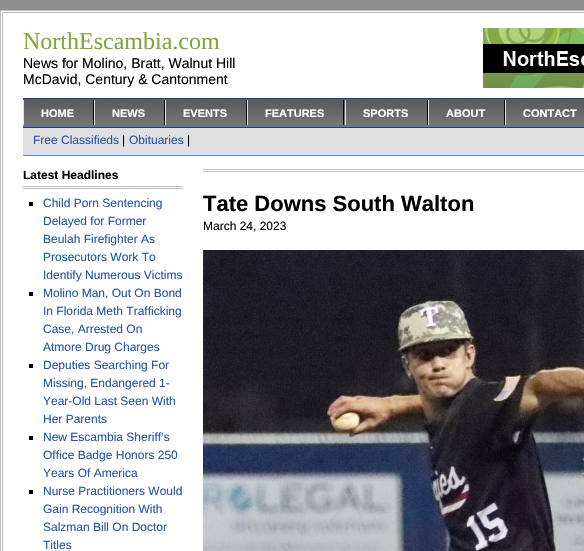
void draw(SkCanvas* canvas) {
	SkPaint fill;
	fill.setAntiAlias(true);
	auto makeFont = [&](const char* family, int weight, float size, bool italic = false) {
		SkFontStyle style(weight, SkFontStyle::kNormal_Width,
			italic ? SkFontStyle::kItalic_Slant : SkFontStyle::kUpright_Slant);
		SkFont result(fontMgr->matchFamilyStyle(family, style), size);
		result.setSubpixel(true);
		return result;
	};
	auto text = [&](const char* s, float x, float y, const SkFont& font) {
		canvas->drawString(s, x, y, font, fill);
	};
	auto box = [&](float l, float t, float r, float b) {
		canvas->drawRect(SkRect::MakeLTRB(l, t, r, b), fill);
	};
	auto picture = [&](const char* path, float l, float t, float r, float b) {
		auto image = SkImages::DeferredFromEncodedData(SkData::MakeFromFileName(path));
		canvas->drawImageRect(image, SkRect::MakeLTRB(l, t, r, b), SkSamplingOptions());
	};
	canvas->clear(0xFF8F8E8E);
	fill.setColor(0xFFFFFFFF);
	canvas->drawRect(SkRect::MakeLTRB(0.5f, 10.5f, 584.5f, 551.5f), fill);
	fill.setStyle(SkPaint::kStroke_Style);
	fill.setStrokeWidth(1);
	fill.setColor(0xFFC0C0C0);
	canvas->drawRect(SkRect::MakeLTRB(0.5f, 10.5f, 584.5f, 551.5f), fill);
	canvas->drawRect(SkRect::MakeLTRB(2.5f, 12.5f, 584.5f, 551.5f), fill);
	picture("image0.png", 483, 28, 584, 88);
	picture("image1.png", 23, 99, 584, 127);
	fill.setStyle(SkPaint::kFill_Style);
	fill.setColor(0xFF1A4182);
	box(23, 98, 584, 99);
	box(23, 127, 584, 128);
	fill.setColor(0xFF000000);
	box(93, 100, 94, 125);
	fill.setColor(0xFFE0E0E0);
	box(23, 100, 24, 125);
	fill.setColor(0xFF000000);
	box(164, 100, 165, 125);
	fill.setColor(0xFFE0E0E0);
	box(94, 100, 95, 125);
	fill.setColor(0xFF000000);
	box(246, 100, 247, 125);
	fill.setColor(0xFFE0E0E0);
	box(165, 100, 166, 125);
	fill.setColor(0xFF000000);
	box(343, 100, 344, 125);
	fill.setColor(0xFFE0E0E0);
	box(247, 100, 248, 125);
	fill.setColor(0xFF000000);
	box(427, 100, 428, 125);
	fill.setColor(0xFFE0E0E0);
	box(345, 100, 346, 125);
	fill.setColor(0xFF000000);
	box(504, 100, 505, 125);
	fill.setColor(0xFFE0E0E0);
	box(428, 100, 429, 125);
	box(505, 100, 506, 125);
	box(23, 128, 584, 155);
	fill.setColor(0xFF548ADA);
	box(23, 155, 584, 156);
	fill.setColor(0xFFC0C0C0);
	box(23, 186, 183, 187);
	box(23, 188, 183, 189);
	fill.setColor(0xFF000000);
	box(29, 202, 33, 206);
	box(29, 292, 33, 296);
	box(29, 364, 33, 368);
	box(29, 436, 33, 440);
	box(29, 490, 33, 494);
	fill.setColor(0xFFC0C0C0);
	box(203, 169, 584, 170);
	box(203, 171, 584, 172);
	picture("image2.png", 203, 250, 584, 551);
	auto font1 = makeFont("Liberation Serif", 400, 24);
	fill.setColor(0xFF7DA939);
	text("NorthEscambia.com", 23, 49, font1);
	auto font2 = makeFont("Liberation Sans", 400, 14);
	fill.setColor(0xFF000000);
	text("News for Molino, Bratt, Walnut Hill", 23, 68, font2);
	text("McDavid, Century & Cantonment", 23, 84, font2);
	auto font3 = makeFont("Liberation Sans", 700, 11);
	fill.setColor(0xFFFFFFFF);
	text("HOME", 41, 117, font3);
	text("NEWS", 112, 117, font3);
	text("EVENTS", 183, 117, font3);
	text("FEATURES", 265, 117, font3);
	text("SPORTS", 363, 117, font3);
	text("ABOUT", 446, 117, font3);
	text("CONTACT", 523, 117, font3);
	auto font4 = makeFont("Liberation Sans", 400, 12);
	fill.setColor(0xFF2255AA);
	text("Free Classifieds", 33, 144, font4);
	fill.setColor(0xFF000000);
	text("|", 122, 144, font4);
	fill.setColor(0xFF2255AA);
	text("Obituaries", 129, 144, font4);
	fill.setColor(0xFF000000);
	text("|", 187, 144, font4);
	auto font5 = makeFont("Liberation Sans", 700, 12);
	text("Latest Headlines", 23, 179, font5);
	fill.setColor(0xFF2255AA);
	text("Child Porn Sentencing", 43, 207, font4);
	text("Delayed for Former", 43, 225, font4);
	text("Beulah Firefighter As", 43, 243, font4);
	text("Prosecutors Work To", 43, 261, font4);
	text("Identify Numerous Victims", 43, 279, font4);
	text("Molino Man, Out On Bond", 43, 297, font4);
	text("In Florida Meth Trafficking", 43, 315, font4);
	text("Case, Arrested On", 43, 333, font4);
	text("Atmore Drug Charges", 43, 351, font4);
	text("Deputies Searching For", 43, 369, font4);
	text("Missing, Endangered 1-", 43, 387, font4);
	text("Year-Old Last Seen With", 43, 405, font4);
	text("Her Parents", 43, 423, font4);
	text("New Escambia Sheriff’s", 43, 441, font4);
	text("Office Badge Honors 250", 43, 459, font4);
	text("Years Of America", 43, 477, font4);
	text("Nurse Practitioners Would", 43, 495, font4);
	text("Gain Recognition With", 43, 513, font4);
	text("Salzman Bill On Doctor", 43, 531, font4);
	text("Titles", 43, 549, font4);
	auto font6 = makeFont("Liberation Sans", 700, 22);
	fill.setColor(0xFF000000);
	text("Tate Downs South Walton", 203, 211, font6);
	text("March 24, 2023", 203, 230, font4);
}
